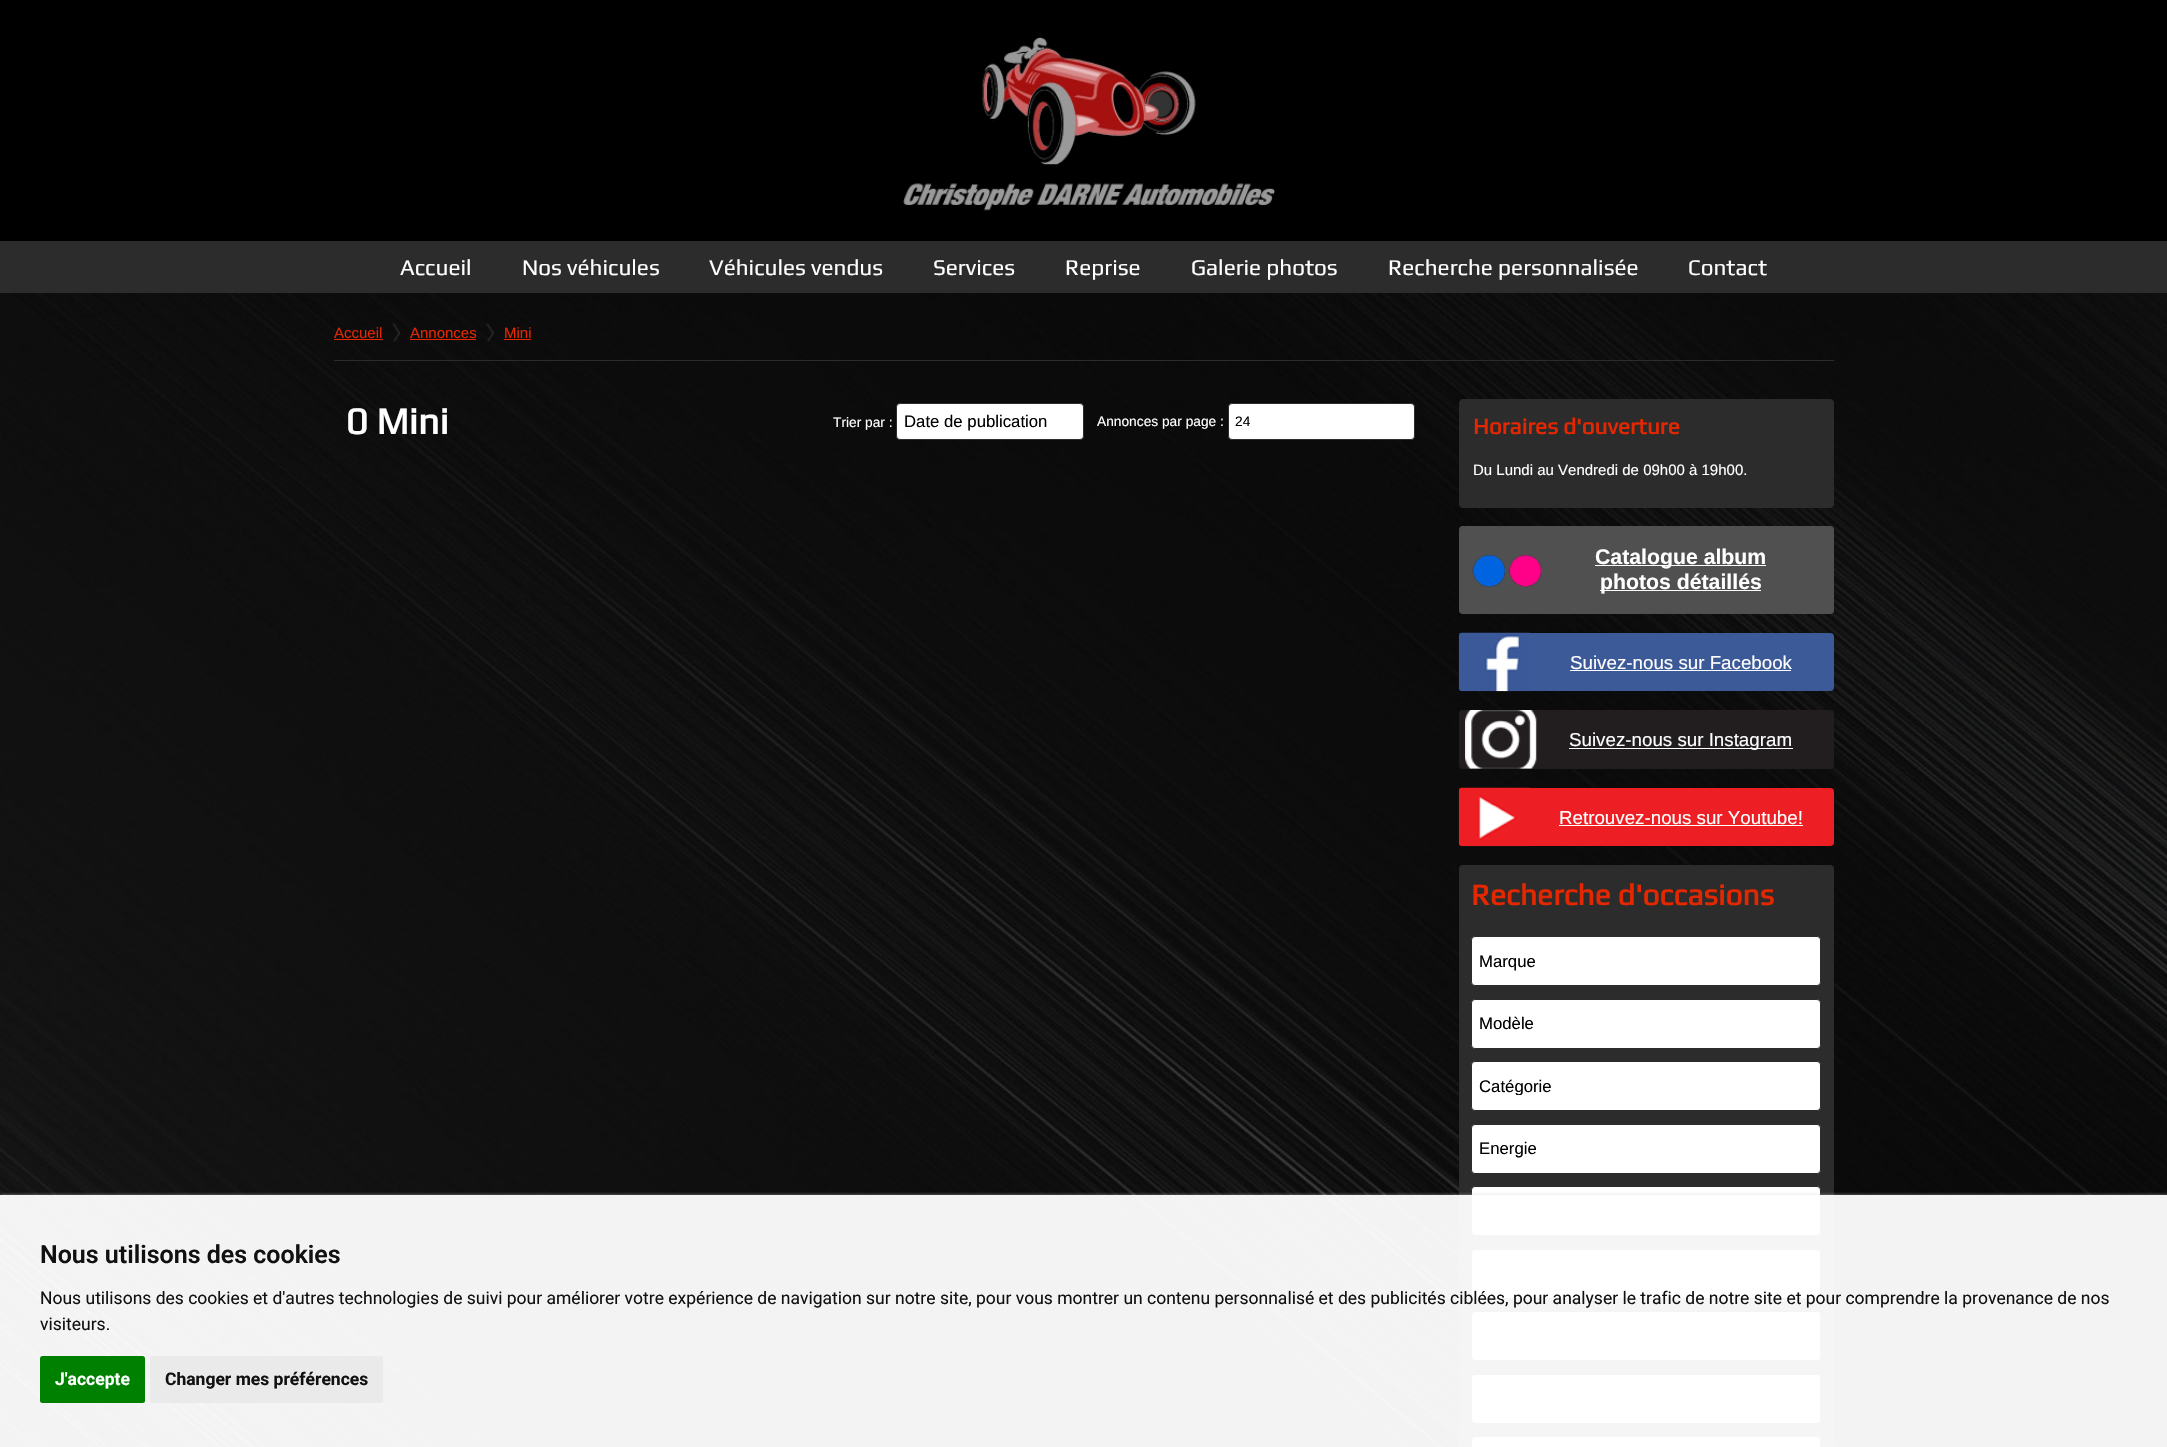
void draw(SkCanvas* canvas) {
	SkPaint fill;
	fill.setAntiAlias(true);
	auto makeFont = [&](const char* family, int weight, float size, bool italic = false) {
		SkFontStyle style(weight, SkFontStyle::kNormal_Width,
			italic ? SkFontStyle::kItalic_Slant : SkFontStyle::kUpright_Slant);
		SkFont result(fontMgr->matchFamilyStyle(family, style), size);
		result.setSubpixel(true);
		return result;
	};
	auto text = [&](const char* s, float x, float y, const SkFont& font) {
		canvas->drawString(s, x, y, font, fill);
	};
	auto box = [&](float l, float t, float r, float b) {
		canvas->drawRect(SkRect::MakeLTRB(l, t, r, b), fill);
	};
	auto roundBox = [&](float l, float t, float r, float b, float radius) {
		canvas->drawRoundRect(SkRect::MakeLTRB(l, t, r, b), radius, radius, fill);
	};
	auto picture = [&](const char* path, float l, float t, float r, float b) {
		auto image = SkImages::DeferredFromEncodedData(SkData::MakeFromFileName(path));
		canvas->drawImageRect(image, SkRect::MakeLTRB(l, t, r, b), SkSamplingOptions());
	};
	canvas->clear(0xFFFFFFFF);
	picture("image0.png", 0, 293, 2167, 1447);
	fill.setColor(0xFF000000);
	box(0, 0, 2167, 241);
	picture("image1.png", 903, 37, 1276, 211);
	fill.setColor(0xFF2C2C2C);
	box(0, 241, 2167, 293);
	fill.setColor(0xFFE32700);
	box(334, 339, 383, 340);
	picture("image2.png", 392, 323, 400, 342);
	box(410, 339, 476, 340);
	picture("image3.png", 486, 323, 494, 342);
	box(504, 339, 531, 340);
	fill.setColor(0xFF2C2C2C);
	box(334, 360, 1834, 361);
	fill.setColor(0xFFFFFFFF);
	canvas->drawRoundRect(SkRect::MakeLTRB(896.5f, 403.5f, 1083.5f, 439.5f), 3.5f, 3.5f, fill);
	fill.setStyle(SkPaint::kStroke_Style);
	fill.setStrokeWidth(1);
	fill.setColor(0xFF2C2C2C);
	canvas->drawRoundRect(SkRect::MakeLTRB(896.5f, 403.5f, 1083.5f, 439.5f), 3.5f, 3.5f, fill);
	fill.setStyle(SkPaint::kFill_Style);
	fill.setColor(0xFFFFFFFF);
	canvas->drawRoundRect(SkRect::MakeLTRB(1228.5f, 403.5f, 1414.5f, 439.5f), 3.5f, 3.5f, fill);
	fill.setStyle(SkPaint::kStroke_Style);
	fill.setColor(0xFF2C2C2C);
	canvas->drawRoundRect(SkRect::MakeLTRB(1228.5f, 403.5f, 1414.5f, 439.5f), 3.5f, 3.5f, fill);
	fill.setStyle(SkPaint::kFill_Style);
	canvas->drawRoundRect(SkRect::MakeLTRB(1459.5f, 399.5f, 1833.5f, 507.5f), 3.5f, 3.5f, fill);
	fill.setStyle(SkPaint::kStroke_Style);
	canvas->drawRoundRect(SkRect::MakeLTRB(1459.5f, 399.5f, 1833.5f, 507.5f), 3.5f, 3.5f, fill);
	fill.setStyle(SkPaint::kFill_Style);
	fill.setColor(0xFF505050);
	roundBox(1459, 526, 1834, 614, 4);
	picture("image4.png", 1472, 554, 1542, 588);
	fill.setColor(0xFFFFFFFF);
	box(1595, 565, 1766, 566);
	box(1600, 590, 1761, 591);
	fill.setColor(0xFF3D5A98);
	roundBox(1459, 633, 1834, 691, 4);
	picture("image5.png", 1458, 632, 1530, 692);
	fill.setColor(0xFFFFFFFF);
	box(1570, 670, 1791, 671);
	fill.setColor(0xFF221E1F);
	roundBox(1459, 710, 1834, 769, 4);
	picture("image6.png", 1465, 710, 1537, 769);
	fill.setColor(0xFFFFFFFF);
	box(1569, 748, 1793, 749);
	fill.setColor(0xFFED1F24);
	roundBox(1459, 788, 1834, 846, 4);
	picture("image7.png", 1458, 787, 1530, 847);
	fill.setColor(0xFFFFFFFF);
	box(1559, 825, 1803, 826);
	fill.setColor(0xFF2C2C2C);
	roundBox(1459, 865, 1834, 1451, 4);
	fill.setColor(0xFFFFFFFF);
	canvas->drawRoundRect(SkRect::MakeLTRB(1471.5f, 936.5f, 1820.5f, 985.5f), 3.5f, 3.5f, fill);
	fill.setStyle(SkPaint::kStroke_Style);
	fill.setColor(0xFF2C2C2C);
	canvas->drawRoundRect(SkRect::MakeLTRB(1471.5f, 936.5f, 1820.5f, 985.5f), 3.5f, 3.5f, fill);
	fill.setStyle(SkPaint::kFill_Style);
	fill.setColor(0xFFFFFFFF);
	canvas->drawRoundRect(SkRect::MakeLTRB(1471.5f, 999.5f, 1820.5f, 1048.5f), 3.5f, 3.5f, fill);
	fill.setStyle(SkPaint::kStroke_Style);
	fill.setColor(0xFF2C2C2C);
	canvas->drawRoundRect(SkRect::MakeLTRB(1471.5f, 999.5f, 1820.5f, 1048.5f), 3.5f, 3.5f, fill);
	fill.setStyle(SkPaint::kFill_Style);
	fill.setColor(0xFFFFFFFF);
	canvas->drawRoundRect(SkRect::MakeLTRB(1471.5f, 1061.5f, 1820.5f, 1110.5f), 3.5f, 3.5f, fill);
	fill.setStyle(SkPaint::kStroke_Style);
	fill.setColor(0xFF2C2C2C);
	canvas->drawRoundRect(SkRect::MakeLTRB(1471.5f, 1061.5f, 1820.5f, 1110.5f), 3.5f, 3.5f, fill);
	fill.setStyle(SkPaint::kFill_Style);
	fill.setColor(0xFFFFFFFF);
	canvas->drawRoundRect(SkRect::MakeLTRB(1471.5f, 1124.5f, 1820.5f, 1173.5f), 3.5f, 3.5f, fill);
	fill.setStyle(SkPaint::kStroke_Style);
	fill.setColor(0xFF2C2C2C);
	canvas->drawRoundRect(SkRect::MakeLTRB(1471.5f, 1124.5f, 1820.5f, 1173.5f), 3.5f, 3.5f, fill);
	fill.setStyle(SkPaint::kFill_Style);
	fill.setColor(0xFFFFFFFF);
	canvas->drawRoundRect(SkRect::MakeLTRB(1471.5f, 1186.5f, 1820.5f, 1235.5f), 3.5f, 3.5f, fill);
	fill.setStyle(SkPaint::kStroke_Style);
	fill.setColor(0xFF2C2C2C);
	canvas->drawRoundRect(SkRect::MakeLTRB(1471.5f, 1186.5f, 1820.5f, 1235.5f), 3.5f, 3.5f, fill);
	fill.setStyle(SkPaint::kFill_Style);
	fill.setColor(0xFFFFFFFF);
	canvas->drawRoundRect(SkRect::MakeLTRB(1471.5f, 1249.5f, 1820.5f, 1298.5f), 3.5f, 3.5f, fill);
	fill.setStyle(SkPaint::kStroke_Style);
	fill.setColor(0xFF2C2C2C);
	canvas->drawRoundRect(SkRect::MakeLTRB(1471.5f, 1249.5f, 1820.5f, 1298.5f), 3.5f, 3.5f, fill);
	fill.setStyle(SkPaint::kFill_Style);
	fill.setColor(0xFFFFFFFF);
	canvas->drawRoundRect(SkRect::MakeLTRB(1471.5f, 1311.5f, 1820.5f, 1360.5f), 3.5f, 3.5f, fill);
	fill.setStyle(SkPaint::kStroke_Style);
	fill.setColor(0xFF2C2C2C);
	canvas->drawRoundRect(SkRect::MakeLTRB(1471.5f, 1311.5f, 1820.5f, 1360.5f), 3.5f, 3.5f, fill);
	fill.setStyle(SkPaint::kFill_Style);
	fill.setColor(0xFFFFFFFF);
	canvas->drawRoundRect(SkRect::MakeLTRB(1471.5f, 1374.5f, 1820.5f, 1423.5f), 3.5f, 3.5f, fill);
	fill.setStyle(SkPaint::kStroke_Style);
	fill.setColor(0xFF2C2C2C);
	canvas->drawRoundRect(SkRect::MakeLTRB(1471.5f, 1374.5f, 1820.5f, 1423.5f), 3.5f, 3.5f, fill);
	fill.setStyle(SkPaint::kFill_Style);
	fill.setColor(0xFFFFFFFF);
	canvas->drawRoundRect(SkRect::MakeLTRB(1471.5f, 1436.5f, 1820.5f, 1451.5f), 3.5f, 3.5f, fill);
	fill.setStyle(SkPaint::kStroke_Style);
	fill.setColor(0xFF2C2C2C);
	canvas->drawRoundRect(SkRect::MakeLTRB(1471.5f, 1436.5f, 1820.5f, 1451.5f), 3.5f, 3.5f, fill);
	canvas->save();
	canvas->clipRect(SkRect::MakeLTRB(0, 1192, 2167, 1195));
	fill.setStyle(SkPaint::kFill_Style);
	fill.setColor(0xFFCCCCCC);
	fill.setMaskFilter(SkMaskFilter::MakeBlur(kNormal_SkBlurStyle, 2));
	canvas->drawRect(SkRect::MakeLTRB(1, 1196, 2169, 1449), fill);
	fill.setMaskFilter(nullptr);
	canvas->restore();
	fill.setColor(0xF2FFFFFF);
	box(0, 1195, 2167, 1447);
	fill.setColor(0xFF008000);
	roundBox(40, 1356, 145, 1403, 2.5f);
	fill.setColor(0xFFEAEAEA);
	roundBox(150, 1356, 383, 1403, 2.5f);
	auto font1 = makeFont("Play", 400, 22.5f);
	fill.setColor(0xFFFFFFFF);
	text("Accueil", 400, 275, font1);
	text("Nos véhicules", 522, 275, font1);
	text("Véhicules vendus", 709, 275, font1);
	text("Services", 933, 275, font1);
	text("Reprise", 1065, 275, font1);
	text("Galerie photos", 1191, 275, font1);
	text("Recherche personnalisée", 1388, 275, font1);
	text("Contact", 1688, 275, font1);
	auto font2 = makeFont("Liberation Sans", 400, 15);
	fill.setColor(0xFFE32700);
	text("Accueil", 334, 338, font2);
	text("Annonces", 410, 338, font2);
	text("Mini", 504, 338, font2);
	auto font3 = makeFont("Play", 700, 37.5f);
	fill.setColor(0xFFFFFFFF);
	text("0 Mini", 346, 434, font3);
	auto font4 = makeFont("Liberation Sans", 400, 13.75f);
	text("Trier par :", 833, 427, font4);
	auto font5 = makeFont("Liberation Sans", 400, 16.75f);
	fill.setColor(0xFF000000);
	text("Date de publication", 904, 427, font5);
	fill.setColor(0xFFFFFFFF);
	text("Annonces par page :", 1097, 426, font4);
	fill.setColor(0xFF000000);
	text("24", 1235, 426, font4);
	auto font6 = makeFont("Play", 700, 22.5f);
	fill.setColor(0xFFE32700);
	text("Horaires d'ouverture", 1473, 434, font6);
	fill.setColor(0xFFFFFFFF);
	text("Du Lundi au Vendredi de 09h00 à 19h00.", 1473, 475, font2);
	auto font7 = makeFont("Liberation Sans", 700, 21.25f);
	text("Catalogue album", 1595, 564, font7);
	text("photos détaillés", 1600, 589, font7);
	auto font8 = makeFont("Liberation Sans", 400, 18.75f);
	text("Suivez-nous sur Facebook", 1570, 669, font8);
	text("Suivez-nous sur Instagram", 1569, 746, font8);
	text("Retrouvez-nous sur Youtube!", 1559, 824, font8);
	auto font9 = makeFont("Play", 700, 30);
	fill.setColor(0xFFE32700);
	text("Recherche d'occasions", 1471, 905, font9);
	fill.setColor(0xFF000000);
	text("Marque", 1479, 967, font5);
	text("Modèle", 1479, 1029, font5);
	canvas->save();
	canvas->clipRect(SkRect::MakeLTRB(1473, 1076, 1820, 1095));
	text("Catégorie", 1479, 1092, font5);
	canvas->restore();
	text("Energie", 1479, 1154, font5);
	auto font10 = makeFont("Roboto", 600, 25);
	fill.setColor(0xFF111111);
	text("Nous utilisons des cookies", 40, 1263, font10);
	auto font11 = makeFont("Roboto", 400, 17.5f);
	text("Nous utilisons des cookies et d'autres technologies de suivi pour améliorer votre expérience de navigation sur notre site, pour vous montrer un contenu personnalisé et des publicités ciblées, pour analyser le trafic de notre site et pour comprendre la provenance de nos", 40, 1304, font11);
	text("visiteurs.", 40, 1330, font11);
	auto font12 = makeFont("Roboto", 700, 17.5f);
	fill.setColor(0xFFFFFFFF);
	text("J'accepte", 55, 1385, font12);
	fill.setColor(0xFF111111);
	text("Changer mes préférences", 165, 1385, font12);
}
